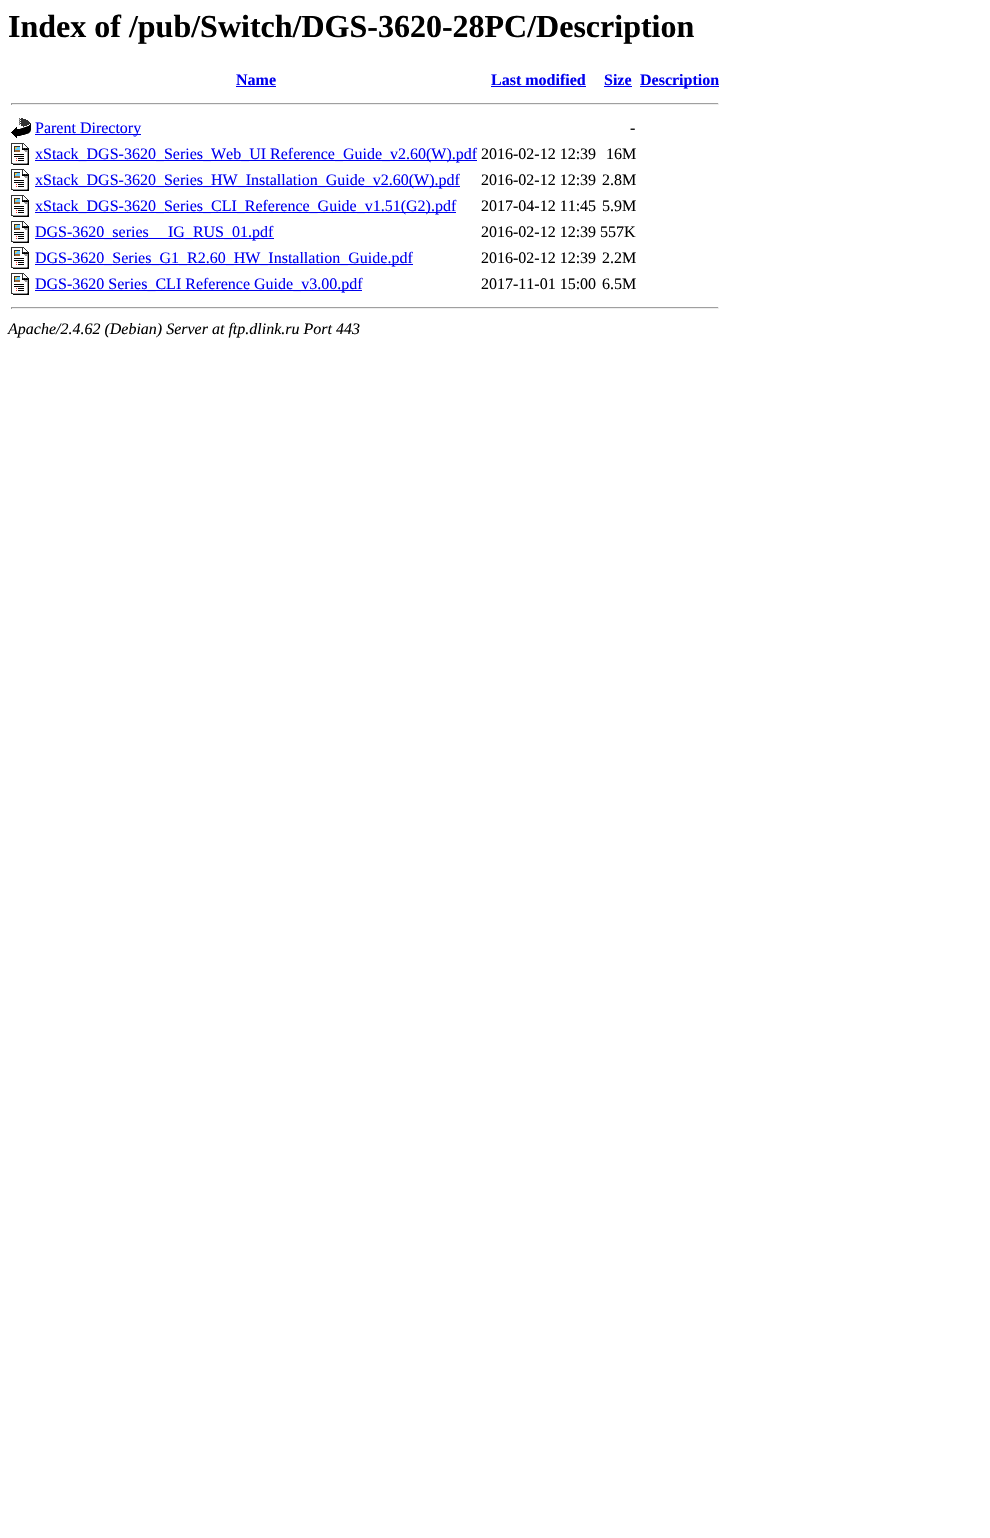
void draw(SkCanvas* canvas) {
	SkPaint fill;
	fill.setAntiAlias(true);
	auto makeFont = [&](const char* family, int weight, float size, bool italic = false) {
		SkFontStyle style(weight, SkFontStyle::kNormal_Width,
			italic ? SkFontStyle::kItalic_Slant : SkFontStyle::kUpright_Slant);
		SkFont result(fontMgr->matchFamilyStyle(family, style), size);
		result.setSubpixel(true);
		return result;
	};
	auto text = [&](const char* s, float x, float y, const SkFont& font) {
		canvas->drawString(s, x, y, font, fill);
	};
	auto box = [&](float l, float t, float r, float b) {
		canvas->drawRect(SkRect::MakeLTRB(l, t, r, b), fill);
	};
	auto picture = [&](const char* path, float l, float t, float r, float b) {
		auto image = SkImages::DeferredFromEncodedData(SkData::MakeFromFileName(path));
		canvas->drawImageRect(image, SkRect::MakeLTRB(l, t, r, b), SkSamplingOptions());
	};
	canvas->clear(0xFFFFFFFF);
	fill.setColor(0xFF0000EE);
	box(236, 86, 276, 87);
	box(491, 86, 586, 87);
	box(604, 86, 632, 87);
	box(640, 86, 719, 87);
	fill.setColor(0xFF9F9F9F);
	box(11, 103, 719, 104);
	fill.setColor(0xFFEEEEEE);
	box(718, 103, 719, 105);
	box(11, 104, 719, 105);
	fill.setColor(0xFF9F9F9F);
	box(11, 103, 12, 105);
	picture("image0.png", 11, 118, 31, 138);
	fill.setColor(0xFF0000EE);
	box(35, 134, 141, 135);
	picture("image1.png", 11, 143, 29, 165);
	box(35, 160, 477, 161);
	picture("image1.png", 11, 169, 29, 191);
	box(35, 186, 460, 187);
	picture("image1.png", 11, 195, 29, 217);
	box(35, 212, 456, 213);
	picture("image1.png", 11, 221, 29, 243);
	box(35, 238, 274, 239);
	picture("image1.png", 11, 247, 29, 269);
	box(35, 264, 413, 265);
	picture("image1.png", 11, 273, 29, 295);
	box(35, 290, 362, 291);
	fill.setColor(0xFF9F9F9F);
	box(11, 307, 719, 308);
	fill.setColor(0xFFEEEEEE);
	box(718, 307, 719, 309);
	box(11, 308, 719, 309);
	fill.setColor(0xFF9F9F9F);
	box(11, 307, 12, 309);
	auto font1 = makeFont("Liberation Serif", 700, 32);
	fill.setColor(0xFF000000);
	text("Index of /pub/Switch/DGS-3620-28PC/Description", 8, 37, font1);
	auto font2 = makeFont("Liberation Serif", 700, 16);
	fill.setColor(0xFF0000EE);
	text("Name", 236, 85, font2);
	text("Last modified", 491, 85, font2);
	text("Size", 604, 85, font2);
	text("Description", 640, 85, font2);
	auto font3 = makeFont("Liberation Serif", 400, 16);
	text("Parent Directory", 35, 133, font3);
	fill.setColor(0xFF000000);
	text("-", 630, 133, font3);
	fill.setColor(0xFF0000EE);
	text("xStack_DGS-3620_Series_Web_UI Reference_Guide_v2.60(W).pdf", 35, 159, font3);
	fill.setColor(0xFF000000);
	text("2016-02-12 12:39", 481, 159, font3);
	text("16M", 606, 159, font3);
	fill.setColor(0xFF0000EE);
	text("xStack_DGS-3620_Series_HW_Installation_Guide_v2.60(W).pdf", 35, 185, font3);
	fill.setColor(0xFF000000);
	text("2016-02-12 12:39", 481, 185, font3);
	text("2.8M", 602, 185, font3);
	fill.setColor(0xFF0000EE);
	text("xStack_DGS-3620_Series_CLI_Reference_Guide_v1.51(G2).pdf", 35, 211, font3);
	fill.setColor(0xFF000000);
	text("2017-04-12 11:45", 481, 211, font3);
	text("5.9M", 602, 211, font3);
	fill.setColor(0xFF0000EE);
	text("DGS-3620_series", 35, 237, font3);
	text("IG_RUS_01.pdf", 168, 237, font3);
	fill.setColor(0xFF000000);
	text("2016-02-12 12:39 557K", 481, 237, font3);
	fill.setColor(0xFF0000EE);
	text("DGS-3620_Series_G1_R2.60_HW_Installation_Guide.pdf", 35, 263, font3);
	fill.setColor(0xFF000000);
	text("2016-02-12 12:39", 481, 263, font3);
	text("2.2M", 602, 263, font3);
	fill.setColor(0xFF0000EE);
	text("DGS-3620 Series_CLI Reference Guide_v3.00.pdf", 35, 289, font3);
	fill.setColor(0xFF000000);
	text("2017-11-01 15:00", 481, 289, font3);
	text("6.5M", 602, 289, font3);
	auto font4 = makeFont("Liberation Serif", 400, 16, true);
	text("Apache/2.4.62 (Debian) Server at ftp.dlink.ru Port 443", 8, 334, font4);
}
